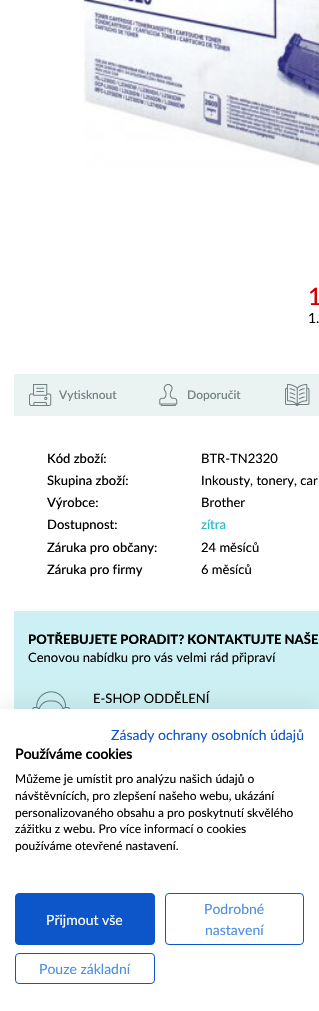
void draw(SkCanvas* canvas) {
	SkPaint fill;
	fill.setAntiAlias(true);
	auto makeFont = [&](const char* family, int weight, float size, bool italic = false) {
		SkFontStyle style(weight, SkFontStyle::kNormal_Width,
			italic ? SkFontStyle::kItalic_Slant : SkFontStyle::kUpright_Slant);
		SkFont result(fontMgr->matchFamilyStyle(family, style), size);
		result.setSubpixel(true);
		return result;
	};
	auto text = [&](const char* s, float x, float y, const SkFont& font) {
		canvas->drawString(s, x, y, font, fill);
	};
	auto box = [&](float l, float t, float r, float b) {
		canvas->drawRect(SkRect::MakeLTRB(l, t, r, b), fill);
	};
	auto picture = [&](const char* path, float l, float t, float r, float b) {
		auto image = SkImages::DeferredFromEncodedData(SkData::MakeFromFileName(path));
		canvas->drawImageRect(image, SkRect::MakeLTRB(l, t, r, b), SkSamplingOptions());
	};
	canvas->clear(0xFFFFFFFF);
	picture("image0.png", 83, 0, 319, 167);
	fill.setColor(0xFFEBF2F2);
	box(14, 374, 319, 416);
	picture("image1.png", 29, 384, 52, 406);
	picture("image2.png", 159, 384, 178, 406);
	picture("image3.png", 285, 384, 310, 406);
	fill.setColor(0xFFCCF0F3);
	box(14, 611, 319, 709);
	picture("image4.png", 32, 691, 70, 709);
	fill.setColor(0x1A000000);
	fill.setMaskFilter(SkMaskFilter::MakeBlur(kNormal_SkBlurStyle, 12));
	canvas->drawRect(SkRect::MakeLTRB(0, 709, 319, 1011), fill);
	fill.setMaskFilter(nullptr);
	fill.setColor(0xFFFFFFFF);
	box(0, 709, 319, 1011);
	fill.setColor(0xFF0D56C9);
	canvas->drawRoundRect(SkRect::MakeLTRB(15.5f, 893.5f, 154.5f, 944.5f), 3.5f, 3.5f, fill);
	fill.setStyle(SkPaint::kStroke_Style);
	fill.setStrokeWidth(1);
	canvas->drawRoundRect(SkRect::MakeLTRB(15.5f, 893.5f, 154.5f, 944.5f), 3.5f, 3.5f, fill);
	canvas->drawRoundRect(SkRect::MakeLTRB(165.5f, 893.5f, 303.5f, 944.5f), 3.5f, 3.5f, fill);
	canvas->drawRoundRect(SkRect::MakeLTRB(15.5f, 953.5f, 154.5f, 983.5f), 3.5f, 3.5f, fill);
	auto font1 = makeFont("Lato", 500, 24);
	fill.setStyle(SkPaint::kFill_Style);
	fill.setColor(0xFFCC0000);
	text("1", 308, 305, font1);
	auto font2 = makeFont("Lato", 400, 14);
	fill.setColor(0xFF000000);
	text("1.", 308, 323, font2);
	auto font3 = makeFont("Lato", 500, 12);
	fill.setColor(0xFF718080);
	text("Vytisknout", 59, 399, font3);
	text("Doporučit", 187, 399, font3);
	auto font4 = makeFont("Lato", 500, 13);
	fill.setColor(0xFF000000);
	text("Kód zboží:", 47, 463, font4);
	auto font5 = makeFont("Lato", 400, 13);
	text("BTR-TN2320", 201, 463, font5);
	text("Skupina zboží:", 47, 485, font4);
	text("Inkousty, tonery, car", 201, 485, font5);
	text("Výrobce:", 47, 507, font4);
	text("Brother", 201, 507, font5);
	text("Dostupnost:", 47, 529, font4);
	fill.setColor(0xFF24BBCB);
	text("zítra", 201, 529, font4);
	fill.setColor(0xFF000000);
	text("Záruka pro občany:", 47, 552, font4);
	text("24 měsíců", 201, 552, font5);
	text("Záruka pro firmy", 47, 574, font4);
	text("6 měsíců", 201, 574, font5);
	auto font6 = makeFont("Lato", 900, 13);
	text("POTŘEBUJETE PORADIT? KONTAKTUJTE NAŠE", 28, 644, font6);
	text("Cenovou nabídku pro vás velmi rád připraví", 28, 662, font5);
	text("E-SHOP ODDĚLENÍ", 93, 703, font5);
	fill.setColor(0xFF0D56C9);
	text("Zásady ochrany osobních údajů", 111, 740, font2);
	auto font7 = makeFont("Lato", 700, 14);
	fill.setColor(0xFF000000);
	text("Používáme cookies", 15, 759, font7);
	auto font8 = makeFont("Lato", 400, 12);
	text("Můžeme je umístit pro analýzu našich údajů o", 15, 783, font8);
	text("návštěvnících, pro zlepšení našeho webu, ukázání", 15, 800, font8);
	text("personalizovaného obsahu a pro poskytnutí skvělého", 15, 817, font8);
	text("zážitku z webu. Pro více informací o cookies", 15, 833, font8);
	text("používáme otevřené nastavení.", 15, 850, font8);
	fill.setColor(0xFFFFFFFF);
	text("Přijmout vše", 46, 925, font2);
	fill.setColor(0xFF4A90E2);
	text("Podrobné", 204, 914, font2);
	text("nastavení", 205, 935, font2);
	text("Pouze základní", 39, 974, font2);
}
